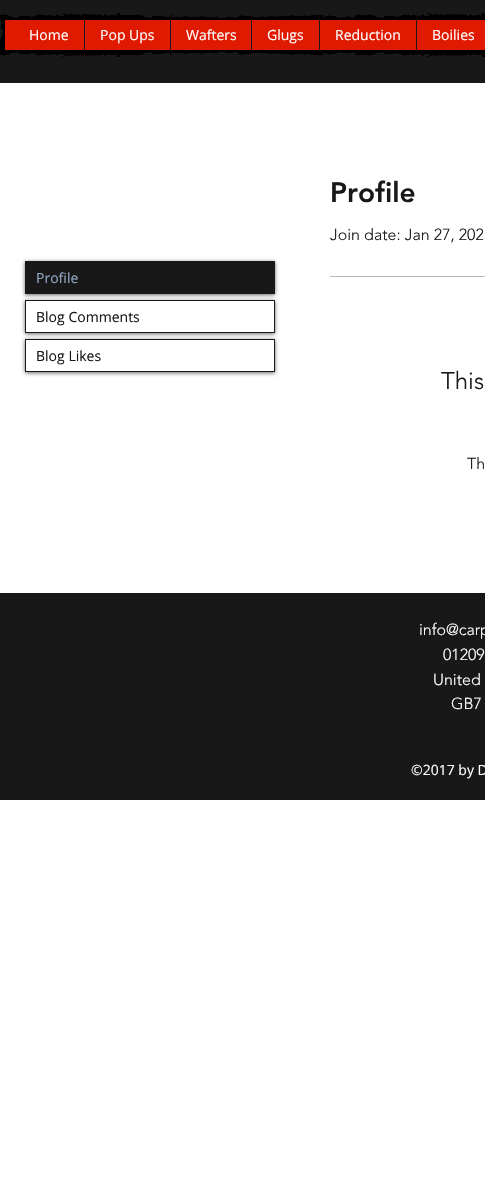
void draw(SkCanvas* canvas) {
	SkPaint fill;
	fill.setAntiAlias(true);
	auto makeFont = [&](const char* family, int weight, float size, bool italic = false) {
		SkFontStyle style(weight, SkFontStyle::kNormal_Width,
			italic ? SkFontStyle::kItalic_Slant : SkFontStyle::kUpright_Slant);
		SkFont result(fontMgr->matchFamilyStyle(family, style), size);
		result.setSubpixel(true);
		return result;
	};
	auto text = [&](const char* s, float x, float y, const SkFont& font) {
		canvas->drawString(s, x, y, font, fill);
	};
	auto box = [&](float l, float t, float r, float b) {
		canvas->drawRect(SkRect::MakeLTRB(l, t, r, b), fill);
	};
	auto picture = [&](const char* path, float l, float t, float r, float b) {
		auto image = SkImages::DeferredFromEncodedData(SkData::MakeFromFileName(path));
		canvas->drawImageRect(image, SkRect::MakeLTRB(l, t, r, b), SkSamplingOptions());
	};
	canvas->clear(0xFFFFFFFF);
	fill.setColor(0xFF181818);
	box(0, 0, 485, 83);
	picture("image0.png", 0, 13, 485, 20);
	picture("image1.png", 0, 20, 5, 50);
	fill.setColor(0xFFE01A00);
	box(5, 20, 485, 50);
	fill.setColor(0xFF181818);
	box(84, 20, 85, 50);
	box(170, 20, 171, 50);
	box(251, 20, 252, 50);
	box(319, 20, 320, 50);
	box(416, 20, 417, 50);
	picture("image2.png", 0, 50, 485, 57);
	fill.setColor(0x99000000);
	fill.setMaskFilter(SkMaskFilter::MakeBlur(kNormal_SkBlurStyle, 2));
	canvas->drawRect(SkRect::MakeLTRB(25, 262, 275, 295), fill);
	fill.setMaskFilter(nullptr);
	fill.setColor(0xFF181818);
	box(25, 261, 275, 294);
	canvas->save();
	canvas->clipPath(SkPathBuilder(SkPathFillType::kEvenOdd).moveTo(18, 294).lineTo(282, 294).lineTo(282, 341).lineTo(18, 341).close().moveTo(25, 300).lineTo(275, 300).lineTo(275, 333).lineTo(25, 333).close().detach(), true);
	fill.setColor(0x99000000);
	fill.setMaskFilter(SkMaskFilter::MakeBlur(kNormal_SkBlurStyle, 2));
	canvas->drawRect(SkRect::MakeLTRB(25, 301, 275, 334), fill);
	fill.setMaskFilter(nullptr);
	canvas->restore();
	fill.setStyle(SkPaint::kStroke_Style);
	fill.setStrokeWidth(1);
	fill.setColor(0xFF181818);
	canvas->drawRect(SkRect::MakeLTRB(25.5f, 300.5f, 274.5f, 332.5f), fill);
	canvas->save();
	canvas->clipPath(SkPathBuilder(SkPathFillType::kEvenOdd).moveTo(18, 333).lineTo(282, 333).lineTo(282, 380).lineTo(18, 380).close().moveTo(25, 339).lineTo(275, 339).lineTo(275, 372).lineTo(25, 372).close().detach(), true);
	fill.setStyle(SkPaint::kFill_Style);
	fill.setColor(0x99000000);
	fill.setMaskFilter(SkMaskFilter::MakeBlur(kNormal_SkBlurStyle, 2));
	canvas->drawRect(SkRect::MakeLTRB(25, 340, 275, 373), fill);
	fill.setMaskFilter(nullptr);
	canvas->restore();
	fill.setStyle(SkPaint::kStroke_Style);
	fill.setColor(0xFF181818);
	canvas->drawRect(SkRect::MakeLTRB(25.5f, 339.5f, 274.5f, 371.5f), fill);
	fill.setStyle(SkPaint::kFill_Style);
	fill.setColor(0xFFBABABA);
	box(330, 276, 485, 277);
	fill.setColor(0xFF181818);
	box(0, 593, 485, 800);
	auto font1 = makeFont("Open Sans", 400, 14);
	fill.setColor(0xFFFFFFFF);
	text("Home", 29, 40, font1);
	text("Pop Ups", 100, 40, font1);
	text("Wafters", 186, 40, font1);
	text("Glugs", 267, 40, font1);
	text("Reduction", 335, 40, font1);
	text("Boilies", 432, 40, font1);
	fill.setColor(0xFF91A9C2);
	text("Profile", 36, 283, font1);
	fill.setColor(0xFF181818);
	text("Blog Comments", 36, 322, font1);
	text("Blog Likes", 36, 361, font1);
	auto font2 = makeFont("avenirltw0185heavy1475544", 900, 28);
	text("Profile", 330, 202, font2);
	auto font3 = makeFont("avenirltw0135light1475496", 300, 16);
	text("Join date: Jan 27, 202", 330, 240, font3);
	auto font4 = makeFont("avenirltw0135light1475496", 300, 24);
	text("This", 441, 389, font4);
	text("Th", 467, 469, font3);
	fill.setColor(0xFFFFFFFF);
	text("info@carp", 419, 635, font3);
	text("01209", 443, 660, font3);
	text("United", 433, 685, font3);
	text("GB7", 451, 709, font3);
	text("©2017 by D", 411, 775, font1);
}
